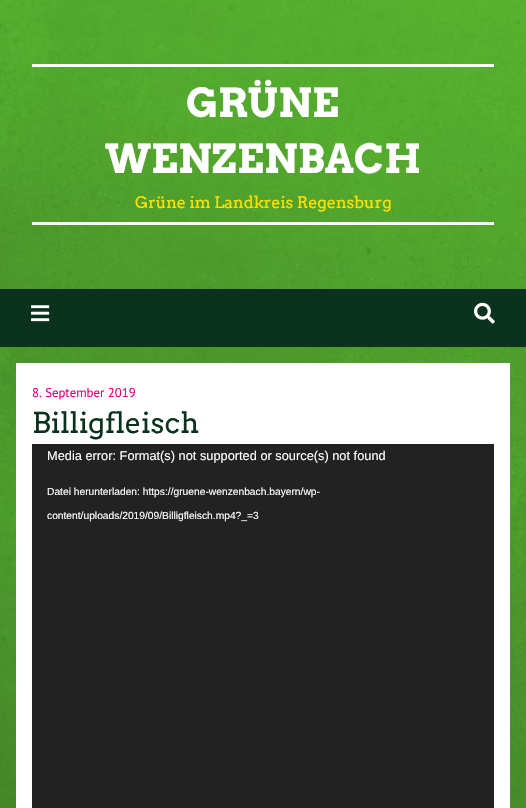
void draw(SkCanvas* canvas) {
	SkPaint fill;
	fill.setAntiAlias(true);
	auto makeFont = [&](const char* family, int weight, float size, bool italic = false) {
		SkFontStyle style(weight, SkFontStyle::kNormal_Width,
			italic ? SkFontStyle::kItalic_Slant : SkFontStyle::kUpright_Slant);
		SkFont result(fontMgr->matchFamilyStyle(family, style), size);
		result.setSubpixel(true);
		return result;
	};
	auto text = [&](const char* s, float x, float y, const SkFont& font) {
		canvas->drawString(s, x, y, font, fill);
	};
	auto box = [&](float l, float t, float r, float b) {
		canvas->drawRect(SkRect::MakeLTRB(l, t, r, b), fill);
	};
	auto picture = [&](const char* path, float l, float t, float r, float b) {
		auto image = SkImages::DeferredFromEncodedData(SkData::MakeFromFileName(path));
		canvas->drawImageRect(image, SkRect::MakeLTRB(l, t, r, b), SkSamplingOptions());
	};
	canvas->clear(0xFFFFFFFF);
	picture("image0.png", 0, 0, 526, 808);
	fill.setColor(0xFFFFFFFF);
	box(32, 64, 494, 67);
	box(32, 222, 494, 225);
	fill.setColor(0xFF0A321E);
	box(0, 289, 526, 347);
	picture("image1.png", 31, 305, 50, 322);
	picture("image2.png", 474, 302, 495, 324);
	fill.setColor(0xFFFFFFFF);
	box(16, 363, 510, 808);
	fill.setColor(0xFF222222);
	box(32, 444, 494, 808);
	auto font1 = makeFont("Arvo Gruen", 400, 40);
	fill.setColor(0xFFFFFFFF);
	text("GRÜNE", 186, 117, font1);
	text("WENZENBACH", 105, 173, font1);
	auto font2 = makeFont("Arvo", 400, 16);
	fill.setColor(0xFFFFE000);
	text("Grüne im Landkreis Regensburg", 135, 208, font2);
	auto font3 = makeFont("PT Sans", 400, 12.8f);
	fill.setColor(0xFFE6007E);
	text("8. September 2019", 32, 397, font3);
	auto font4 = makeFont("Arvo", 400, 28.75f);
	fill.setColor(0xFF0A321E);
	text("Billigfleisch", 32, 433, font4);
	auto font5 = makeFont("Liberation Sans", 400, 12.8f);
	fill.setColor(0xFFFFFFFF);
	text("Media error: Format(s) not supported or source(s) not found", 47, 460, font5);
	auto font6 = makeFont("Liberation Sans", 400, 10.25f);
	text("Datei herunterladen: https://gruene-wenzenbach.bayern/wp-", 47, 495, font6);
	text("content/uploads/2019/09/Billigfleisch.mp4?_=3", 47, 519, font6);
}
